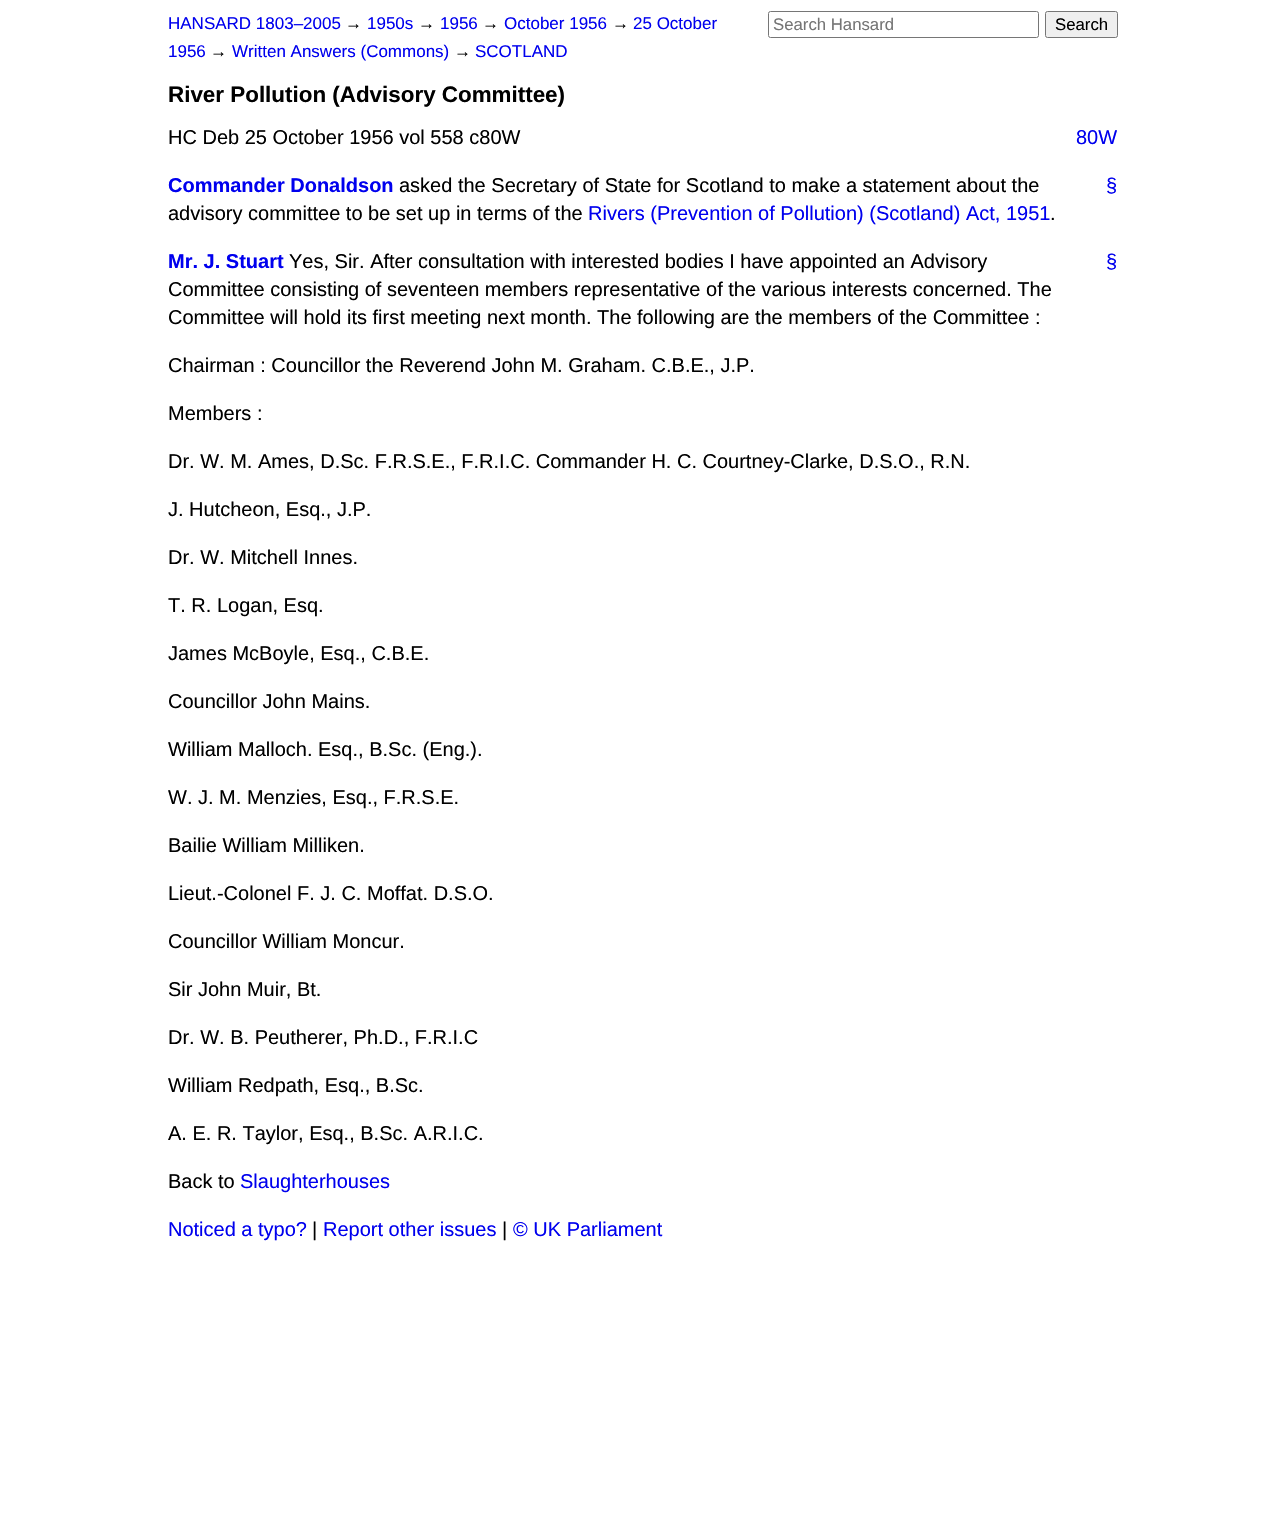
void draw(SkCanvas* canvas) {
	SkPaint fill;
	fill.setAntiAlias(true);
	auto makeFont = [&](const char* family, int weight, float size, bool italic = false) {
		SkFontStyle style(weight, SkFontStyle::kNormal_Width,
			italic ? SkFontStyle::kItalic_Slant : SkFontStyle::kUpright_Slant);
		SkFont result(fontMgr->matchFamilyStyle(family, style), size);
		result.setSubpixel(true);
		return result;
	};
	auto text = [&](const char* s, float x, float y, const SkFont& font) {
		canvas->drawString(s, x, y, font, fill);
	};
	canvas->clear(0xFFFFFFFF);
	fill.setStyle(SkPaint::kStroke_Style);
	fill.setStrokeWidth(1);
	fill.setColor(0xFF767676);
	canvas->drawRoundRect(SkRect::MakeLTRB(768.5f, 11.5f, 1038.5f, 37.5f), 2, 2, fill);
	fill.setStyle(SkPaint::kFill_Style);
	fill.setColor(0xFFEFEFEF);
	canvas->drawRoundRect(SkRect::MakeLTRB(1045.5f, 11.5f, 1117.5f, 37.5f), 2, 2, fill);
	fill.setStyle(SkPaint::kStroke_Style);
	fill.setColor(0xFF767676);
	canvas->drawRoundRect(SkRect::MakeLTRB(1045.5f, 11.5f, 1117.5f, 37.5f), 2, 2, fill);
	auto font1 = makeFont("Liberation Sans", 400, 17);
	fill.setStyle(SkPaint::kFill_Style);
	fill.setColor(0xFF0000EE);
	text("HANSARD 1803–2005", 168, 29, font1);
	fill.setColor(0xFF000000);
	text("→", 345, 29, font1);
	fill.setColor(0xFF0000EE);
	text("1950s", 367, 29, font1);
	fill.setColor(0xFF000000);
	text("→", 418, 29, font1);
	fill.setColor(0xFF0000EE);
	text("1956", 440, 29, font1);
	fill.setColor(0xFF000000);
	text("→", 482, 29, font1);
	fill.setColor(0xFF0000EE);
	text("October 1956", 504, 29, font1);
	fill.setColor(0xFF000000);
	text("→", 612, 29, font1);
	fill.setColor(0xFF0000EE);
	text("25 October", 633, 29, font1);
	text("1956", 168, 57, font1);
	fill.setColor(0xFF000000);
	text("→", 210, 57, font1);
	fill.setColor(0xFF0000EE);
	text("Written Answers (Commons)", 232, 57, font1);
	fill.setColor(0xFF000000);
	text("→", 454, 57, font1);
	fill.setColor(0xFF0000EE);
	text("SCOTLAND", 475, 57, font1);
	auto font2 = makeFont("Liberation Sans", 400, 16.75f);
	fill.setColor(0xFF757575);
	text("Search Hansard", 773, 30, font2);
	fill.setColor(0xFF000000);
	text("Search", 1055, 30, font2);
	auto font3 = makeFont("Liberation Sans", 700, 22.4f);
	text("River Pollution (Advisory Committee)", 168, 102, font3);
	auto font4 = makeFont("Liberation Sans", 400, 20);
	text("HC Deb 25 October 1956 vol 558 c80W", 168, 144, font4);
	fill.setColor(0xFF0000EE);
	text("80W", 1076, 144, font4);
	auto font5 = makeFont("Liberation Sans", 700, 20);
	text("Commander Donaldson", 168, 192, font5);
	fill.setColor(0xFF000000);
	text("asked the Secretary of State for Scotland to make a statement about the", 399, 192, font4);
	fill.setColor(0xFF0000EE);
	text("§", 1106, 192, font4);
	fill.setColor(0xFF000000);
	text("advisory committee to be set up in terms of the", 168, 220, font4);
	fill.setColor(0xFF0000EE);
	text("Rivers (Prevention of Pollution) (Scotland) Act, 1951", 588, 220, font4);
	fill.setColor(0xFF000000);
	text(".", 1050, 220, font4);
	fill.setColor(0xFF0000EE);
	text("Mr. J. Stuart", 168, 268, font5);
	fill.setColor(0xFF000000);
	text("Yes, Sir. After consultation with interested bodies I have appointed an Advisory", 289, 268, font4);
	fill.setColor(0xFF0000EE);
	text("§", 1106, 268, font4);
	fill.setColor(0xFF000000);
	text("Committee consisting of seventeen members representative of the various interests concerned. The", 168, 296, font4);
	text("Committee will hold its first meeting next month. The following are the members of the Committee :", 168, 324, font4);
	text("Chairman : Councillor the Reverend John M. Graham. C.B.E., J.P.", 168, 372, font4);
	text("Members :", 168, 420, font4);
	text("Dr. W. M. Ames, D.Sc. F.R.S.E., F.R.I.C. Commander H. C. Courtney-Clarke, D.S.O., R.N.", 168, 468, font4);
	text("J. Hutcheon, Esq., J.P.", 168, 516, font4);
	text("Dr. W. Mitchell Innes.", 168, 564, font4);
	text("T. R. Logan, Esq.", 168, 612, font4);
	text("James McBoyle, Esq., C.B.E.", 168, 660, font4);
	text("Councillor John Mains.", 168, 708, font4);
	text("William Malloch. Esq., B.Sc. (Eng.).", 168, 756, font4);
	text("W. J. M. Menzies, Esq., F.R.S.E.", 168, 804, font4);
	text("Bailie William Milliken.", 168, 852, font4);
	text("Lieut.-Colonel F. J. C. Moffat. D.S.O.", 168, 900, font4);
	text("Councillor William Moncur.", 168, 948, font4);
	text("Sir John Muir, Bt.", 168, 996, font4);
	text("Dr. W. B. Peutherer, Ph.D., F.R.I.C", 168, 1044, font4);
	text("William Redpath, Esq., B.Sc.", 168, 1092, font4);
	text("A. E. R. Taylor, Esq., B.Sc. A.R.I.C.", 168, 1140, font4);
	text("Back to", 168, 1188, font4);
	fill.setColor(0xFF0000EE);
	text("Slaughterhouses", 240, 1188, font4);
	text("Noticed a typo?", 168, 1236, font4);
	fill.setColor(0xFF000000);
	text("|", 312, 1236, font4);
	fill.setColor(0xFF0000EE);
	text("Report other issues", 323, 1236, font4);
	fill.setColor(0xFF000000);
	text("|", 502, 1236, font4);
	fill.setColor(0xFF0000EE);
	text("© UK Parliament", 513, 1236, font4);
}
